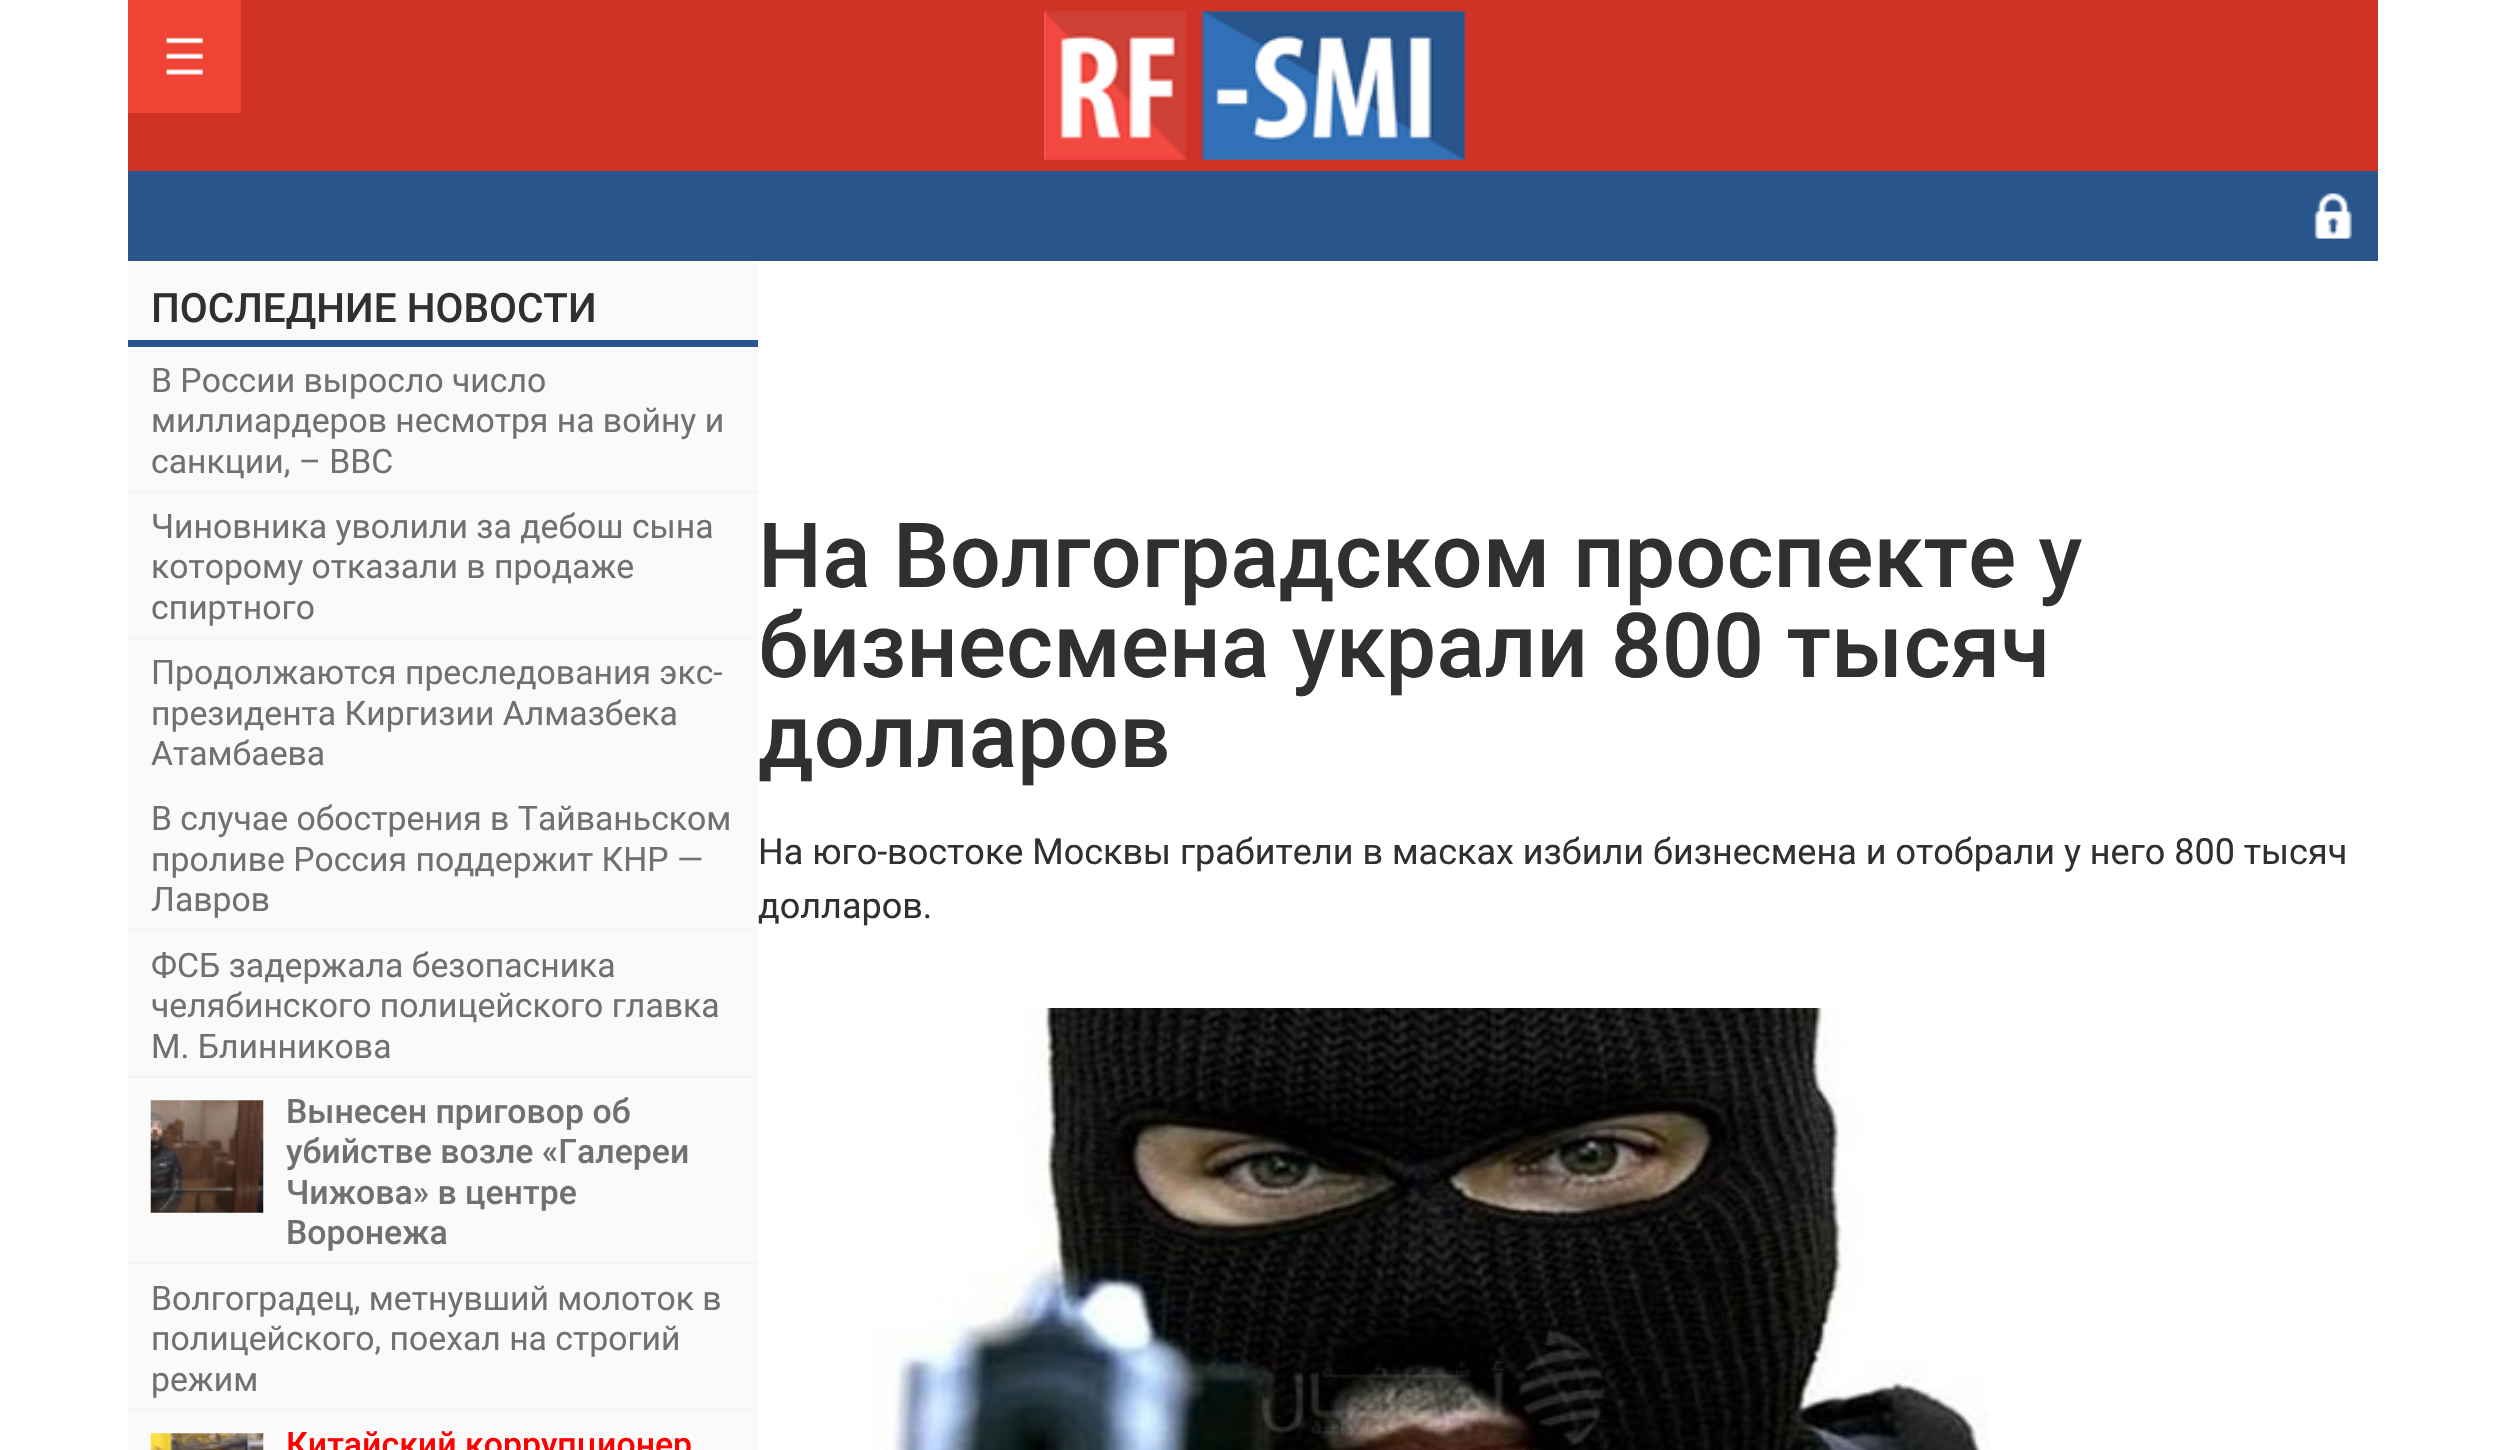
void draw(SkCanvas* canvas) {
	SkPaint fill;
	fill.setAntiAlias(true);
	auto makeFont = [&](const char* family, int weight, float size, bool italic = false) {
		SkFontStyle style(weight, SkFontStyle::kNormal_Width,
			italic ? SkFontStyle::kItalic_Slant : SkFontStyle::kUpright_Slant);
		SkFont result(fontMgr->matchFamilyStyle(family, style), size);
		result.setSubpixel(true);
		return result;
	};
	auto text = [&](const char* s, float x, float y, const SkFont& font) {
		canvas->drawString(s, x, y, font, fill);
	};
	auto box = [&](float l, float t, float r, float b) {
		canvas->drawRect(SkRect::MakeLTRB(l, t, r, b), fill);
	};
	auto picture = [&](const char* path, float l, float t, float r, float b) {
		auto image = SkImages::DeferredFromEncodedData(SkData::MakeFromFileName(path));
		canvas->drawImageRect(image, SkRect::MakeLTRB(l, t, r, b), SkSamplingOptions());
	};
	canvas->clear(0xFFFFFFFF);
	fill.setColor(0xFFD03226);
	box(128, 0, 2378, 171);
	fill.setColor(0xFFEF4335);
	box(128, 0, 241, 113);
	picture("image0.png", 166, 37, 204, 75);
	picture("image1.png", 1044, 11, 1465, 160);
	fill.setColor(0xFF28558C);
	box(128, 171, 2378, 261);
	picture("image2.png", 2311, 193, 2352, 239);
	fill.setColor(0xFFFAFAFA);
	box(128, 261, 758, 1450);
	fill.setColor(0xFF28558C);
	box(128, 340, 758, 347);
	fill.setColor(0xFFF5F5F5);
	box(128, 491, 758, 493);
	box(128, 637, 758, 639);
	box(128, 783, 758, 785);
	box(128, 929, 758, 931);
	box(128, 1076, 758, 1078);
	box(128, 1262, 758, 1264);
	picture("image3.png", 150, 1100, 264, 1213);
	box(128, 1409, 758, 1411);
	picture("image4.png", 150, 1433, 264, 1450);
	picture("image5.png", 869, 1008, 1989, 1450);
	auto font1 = makeFont("Roboto", 500, 40.5f);
	fill.setColor(0xFF303030);
	text("ПОСЛЕДНИЕ НОВОСТИ", 151, 322, font1);
	auto font2 = makeFont("Roboto", 400, 33.75f);
	fill.setColor(0xFF707070);
	text("В России выросло число", 151, 392, font2);
	text("миллиардеров несмотря на войну и", 151, 432, font2);
	text("санкции, – BBC", 151, 473, font2);
	text("Чиновника уволили за дебош сына", 151, 538, font2);
	text("которому отказали в продаже", 151, 578, font2);
	text("спиртного", 151, 619, font2);
	text("Продолжаются преследования экс-", 151, 684, font2);
	text("президента Киргизии Алмазбека", 151, 725, font2);
	text("Атамбаева", 151, 765, font2);
	text("В случае обострения в Тайваньском", 151, 830, font2);
	text("проливе Россия поддержит КНР —", 151, 871, font2);
	text("Лавров", 151, 911, font2);
	text("ФСБ задержала безопасника", 151, 977, font2);
	text("челябинского полицейского главка", 151, 1017, font2);
	text("М. Блинникова", 151, 1058, font2);
	auto font3 = makeFont("Roboto", 500, 33.75f);
	text("Вынесен приговор об", 286, 1123, font3);
	text("убийстве возле «Галереи", 286, 1163, font3);
	text("Чижова» в центре", 286, 1204, font3);
	text("Воронежа", 286, 1244, font3);
	text("Волгоградец, метнувший молоток в", 151, 1310, font2);
	text("полицейского, поехал на строгий", 151, 1350, font2);
	text("режим", 151, 1391, font2);
	fill.setColor(0xFFFF0000);
	text("Китайский коррупционер", 286, 1456, font3);
	auto font4 = makeFont("Roboto", 500, 90);
	fill.setColor(0xFF303030);
	text("На Волгоградском проспекте у", 758, 587, font4);
	text("бизнесмена украли 800 тысяч", 758, 677, font4);
	text("долларов", 758, 767, font4);
	auto font5 = makeFont("Roboto", 400, 36);
	text("На юго-востоке Москвы грабители в масках избили бизнесмена и отобрали у него 800 тысяч", 758, 864, font5);
	text("долларов.", 758, 918, font5);
}
